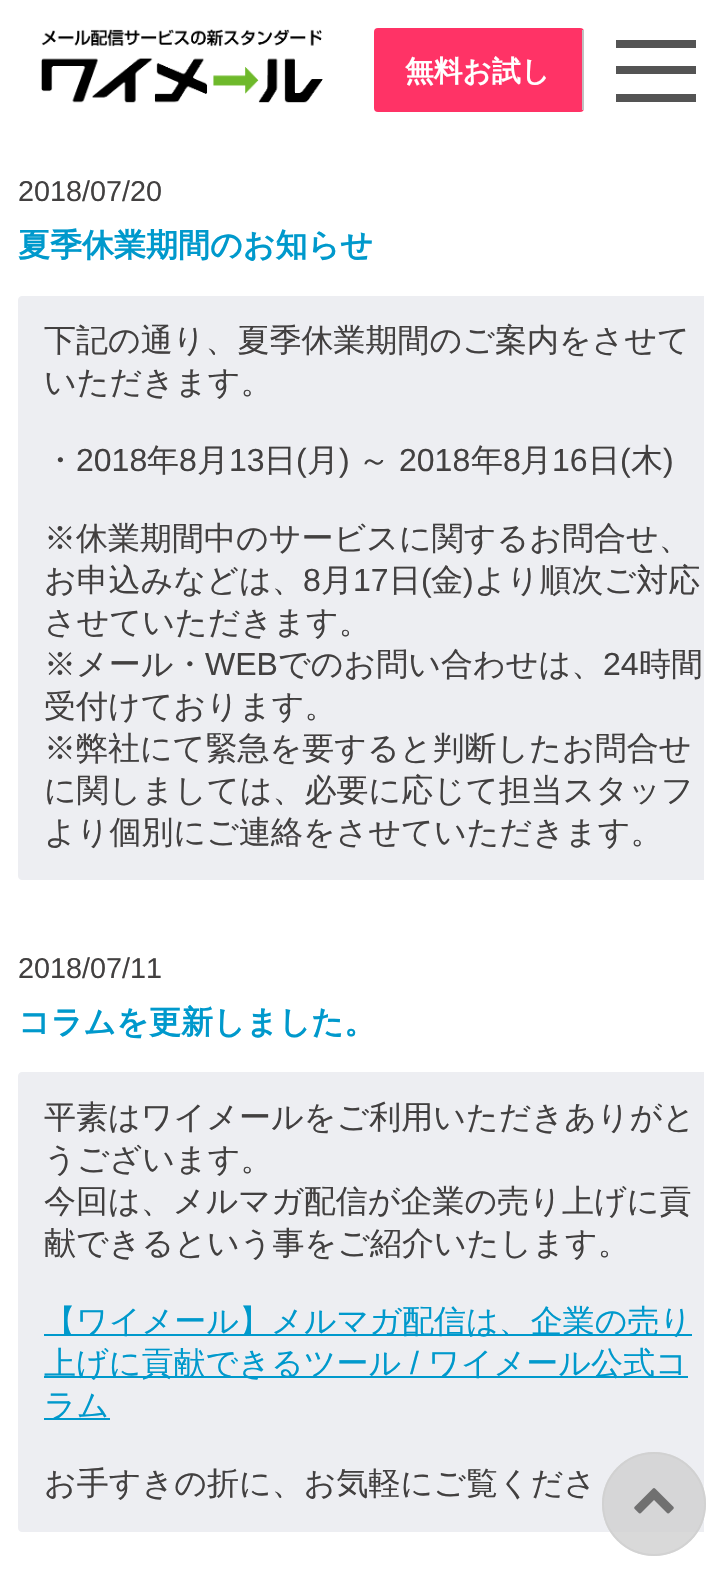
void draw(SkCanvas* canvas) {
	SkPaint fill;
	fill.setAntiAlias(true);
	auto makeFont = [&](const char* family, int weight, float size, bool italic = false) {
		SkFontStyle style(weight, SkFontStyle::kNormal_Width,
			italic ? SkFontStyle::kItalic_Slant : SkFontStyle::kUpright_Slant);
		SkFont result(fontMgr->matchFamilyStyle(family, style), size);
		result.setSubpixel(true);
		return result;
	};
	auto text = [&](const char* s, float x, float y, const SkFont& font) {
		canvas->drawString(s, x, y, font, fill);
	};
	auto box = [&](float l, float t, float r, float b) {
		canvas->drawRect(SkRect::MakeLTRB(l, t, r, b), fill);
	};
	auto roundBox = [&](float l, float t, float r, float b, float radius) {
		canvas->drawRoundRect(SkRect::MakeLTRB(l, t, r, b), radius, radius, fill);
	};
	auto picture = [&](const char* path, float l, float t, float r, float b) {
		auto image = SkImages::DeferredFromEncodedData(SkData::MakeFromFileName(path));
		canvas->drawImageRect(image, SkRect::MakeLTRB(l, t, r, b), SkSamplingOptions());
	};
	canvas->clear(0xFFFFFFFF);
	picture("image0.png", 41, 29, 323, 103);
	fill.setColor(0xFFFF3366);
	roundBox(374, 28, 584, 112, 4);
	fill.setColor(0xFFC0C0C0);
	box(582, 30, 584, 110);
	fill.setColor(0xFF545454);
	box(616, 40, 696, 48);
	box(616, 66, 696, 74);
	box(616, 94, 696, 102);
	fill.setColor(0xFFEDEEF2);
	canvas->drawPath(SkPathBuilder().moveTo(22, 296).lineTo(704, 296).lineTo(704, 880).lineTo(22, 880).cubicTo(20, 880, 18, 878, 18, 876).lineTo(18, 300).cubicTo(18, 298, 20, 296, 22, 296).close().detach(), fill);
	canvas->drawPath(SkPathBuilder().moveTo(22, 1072).lineTo(704, 1072).lineTo(704, 1532).lineTo(22, 1532).cubicTo(20, 1532, 18, 1530, 18, 1528).lineTo(18, 1076).cubicTo(18, 1074, 20, 1072, 22, 1072).close().detach(), fill);
	fill.setColor(0xFF0099CC);
	box(44, 1334, 692, 1336);
	box(44, 1376, 688, 1378);
	box(44, 1418, 110, 1420);
	fill.setColor(0xCCCFCFCF);
	canvas->drawCircle(654, 1504, 52, fill);
	fill.setStyle(SkPaint::kStroke_Style);
	fill.setStrokeWidth(2);
	canvas->drawCircle(654, 1504, 51, fill);
	picture("image1.png", 634, 1488, 674, 1514);
	auto font1 = makeFont("WenQuanYi Zen Hei", 700, 28.75f);
	fill.setStyle(SkPaint::kFill_Style);
	fill.setColor(0xFFFFFFFF);
	text("無料お試し", 405, 81, font1);
	auto font2 = makeFont("Liberation Sans", 400, 28.75f);
	fill.setColor(0xFF424040);
	text("2018/07/20", 18, 201, font2);
	auto font3 = makeFont("WenQuanYi Zen Hei", 700, 32);
	fill.setColor(0xFF0099CC);
	text("夏季休業期間のお知らせ", 18, 256, font3);
	auto font4 = makeFont("WenQuanYi Zen Hei", 500, 32);
	fill.setColor(0xFF424040);
	text("下記の通り、夏季休業期間のご案内をさせて", 44, 351, font4);
	text("いただきます。", 44, 393, font4);
	text("・", 44, 471, font4);
	auto font5 = makeFont("Liberation Sans", 400, 32);
	text("2018", 76, 471, font5);
	text("年", 147, 471, font4);
	text("8", 179, 471, font5);
	text("月", 197, 471, font4);
	text("13", 229, 471, font5);
	text("日", 264, 471, font4);
	text("(", 296, 471, font5);
	text("月", 307, 471, font4);
	text(")", 339, 471, font5);
	text("～", 358, 471, font4);
	text("2018", 399, 471, font5);
	text("年", 471, 471, font4);
	text("8", 503, 471, font5);
	text("月", 520, 471, font4);
	text("16", 552, 471, font5);
	text("日", 588, 471, font4);
	text("(", 620, 471, font5);
	text("木", 631, 471, font4);
	text(")", 663, 471, font5);
	text("※休業期間中のサービスに関するお問合せ、", 44, 549, font4);
	text("お申込みなどは、", 44, 591, font4);
	text("8", 303, 591, font5);
	text("月", 321, 591, font4);
	text("17", 353, 591, font5);
	text("日", 389, 591, font4);
	text("(", 421, 591, font5);
	text("金", 431, 591, font4);
	text(")", 463, 591, font5);
	text("より順次ご対応", 474, 591, font4);
	text("させていただきます。", 44, 633, font4);
	text("※メール・", 44, 675, font4);
	text("WEB", 205, 675, font5);
	text("でのお問い合わせは、", 278, 675, font4);
	text("24", 603, 675, font5);
	text("時間", 639, 675, font4);
	text("受付けております。", 44, 717, font4);
	text("※弊社にて緊急を要すると判断したお問合せ", 44, 759, font4);
	text("に関しましては、必要に応じて担当スタッフ", 44, 801, font4);
	text("より個別にご連絡をさせていただきます。", 44, 843, font4);
	text("2018/07/11", 18, 978, font2);
	fill.setColor(0xFF0099CC);
	text("コラムを更新しました。", 18, 1033, font3);
	fill.setColor(0xFF424040);
	text("平素はワイメールをご利用いただきありがと", 44, 1128, font4);
	text("うございます。", 44, 1170, font4);
	text("今回は、メルマガ配信が企業の売り上げに貢", 44, 1212, font4);
	text("献できるという事をご紹介いたします。", 44, 1254, font4);
	fill.setColor(0xFF0099CC);
	text("【ワイメール】メルマガ配信は、企業の売り", 44, 1332, font4);
	text("上げに貢献できるツール", 44, 1374, font4);
	text("/", 410, 1374, font5);
	text("ワイメール公式コ", 428, 1374, font4);
	text("ラム", 44, 1416, font4);
	fill.setColor(0xFF424040);
	text("お手すきの折に、お気軽にご覧くださ", 44, 1494, font4);
}
